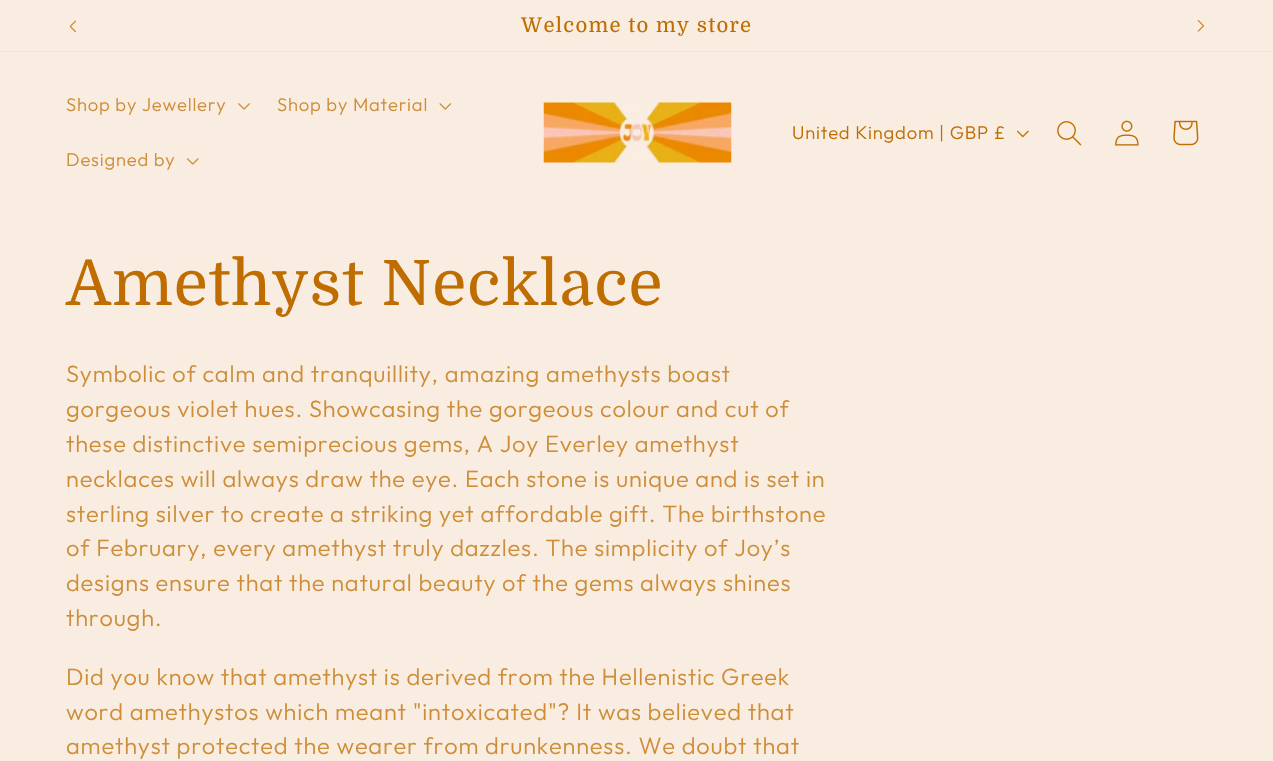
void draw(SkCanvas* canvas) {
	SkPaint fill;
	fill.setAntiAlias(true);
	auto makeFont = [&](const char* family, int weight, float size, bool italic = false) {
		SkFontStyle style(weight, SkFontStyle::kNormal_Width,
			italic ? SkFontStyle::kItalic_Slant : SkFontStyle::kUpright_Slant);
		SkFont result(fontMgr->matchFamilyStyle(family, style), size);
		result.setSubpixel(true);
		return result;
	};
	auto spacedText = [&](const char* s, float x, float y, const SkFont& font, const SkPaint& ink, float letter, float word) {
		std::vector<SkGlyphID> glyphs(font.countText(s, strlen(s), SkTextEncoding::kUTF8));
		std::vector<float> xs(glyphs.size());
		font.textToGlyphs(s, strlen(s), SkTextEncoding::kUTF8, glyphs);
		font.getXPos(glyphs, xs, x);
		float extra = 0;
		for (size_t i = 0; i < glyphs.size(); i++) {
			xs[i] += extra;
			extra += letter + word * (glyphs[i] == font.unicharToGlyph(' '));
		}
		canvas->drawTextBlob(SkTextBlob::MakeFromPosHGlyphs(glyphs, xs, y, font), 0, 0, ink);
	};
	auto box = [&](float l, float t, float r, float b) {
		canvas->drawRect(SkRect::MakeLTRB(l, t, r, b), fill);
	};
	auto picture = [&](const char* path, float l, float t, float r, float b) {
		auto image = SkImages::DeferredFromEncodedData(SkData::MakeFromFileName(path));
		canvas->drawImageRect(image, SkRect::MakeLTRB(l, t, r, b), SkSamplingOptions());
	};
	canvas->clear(0xFFF9EDE1);
	fill.setColor(0xFFF4E3CF);
	box(0, 51, 1273, 52);
	picture("image0.png", 69, 20, 76, 33);
	picture("image1.png", 1197, 20, 1204, 32);
	picture("image2.png", 238, 103, 250, 110);
	picture("image3.png", 439, 103, 452, 110);
	picture("image4.png", 187, 158, 199, 165);
	picture("image5.png", 543, 102, 732, 163);
	picture("image6.png", 1016, 130, 1029, 138);
	picture("image7.png", 1057, 121, 1082, 146);
	picture("image8.png", 1115, 120, 1139, 146);
	picture("image9.png", 1173, 120, 1199, 146);
	auto font1 = makeFont("Domine", 400, 20.25f);
	fill.setColor(0xFFBF6D00);
	spacedText("Welcome to my store", 521, 32, font1, fill, 1.3f, 0);
	auto font2 = makeFont("Outfit", 300, 18.4f);
	fill.setColor(0xFFCE8D38);
	spacedText("Shop by Jewellery", 66, 111, font2, fill, 0.8f, 0);
	spacedText("Shop by Material", 277, 111, font2, fill, 0.8f, 0);
	spacedText("Designed by", 66, 166, font2, fill, 0.8f, 0);
	fill.setColor(0xFFBF6D00);
	spacedText("United Kingdom | GBP £", 792, 139, font2, fill, 0.8f, 0);
	auto font3 = makeFont("Domine", 400, 62.5f);
	spacedText("Amethyst Necklace", 66, 305, font3, fill, 0.9f, 0);
	auto font4 = makeFont("Outfit", 300, 23.6f);
	fill.setColor(0xFFCE8D38);
	spacedText("Symbolic of calm and tranquillity, amazing amethysts boast", 66, 382, font4, fill, 0.8f, 0);
	spacedText("gorgeous violet hues. Showcasing the gorgeous colour and cut of", 66, 417, font4, fill, 0.8f, 0);
	spacedText("these distinctive semiprecious gems, A Joy Everley amethyst", 66, 452, font4, fill, 0.8f, 0);
	spacedText("necklaces will always draw the eye. Each stone is unique and is set in", 66, 487, font4, fill, 0.8f, 0);
	spacedText("sterling silver to create a striking yet affordable gift. The birthstone", 66, 522, font4, fill, 0.8f, 0);
	spacedText("of February, every amethyst truly dazzles. The simplicity of Joy’s", 66, 556, font4, fill, 0.8f, 0);
	spacedText("designs ensure that the natural beauty of the gems always shines", 66, 591, font4, fill, 0.8f, 0);
	spacedText("through.", 66, 626, font4, fill, 0.8f, 0);
	spacedText("Did you know that amethyst is derived from the Hellenistic Greek", 66, 685, font4, fill, 0.8f, 0);
	spacedText("word amethystos which meant \"intoxicated\"? It was believed that", 66, 720, font4, fill, 0.8f, 0);
	spacedText("amethyst protected the wearer from drunkenness. We doubt that", 66, 754, font4, fill, 0.8f, 0);
}
